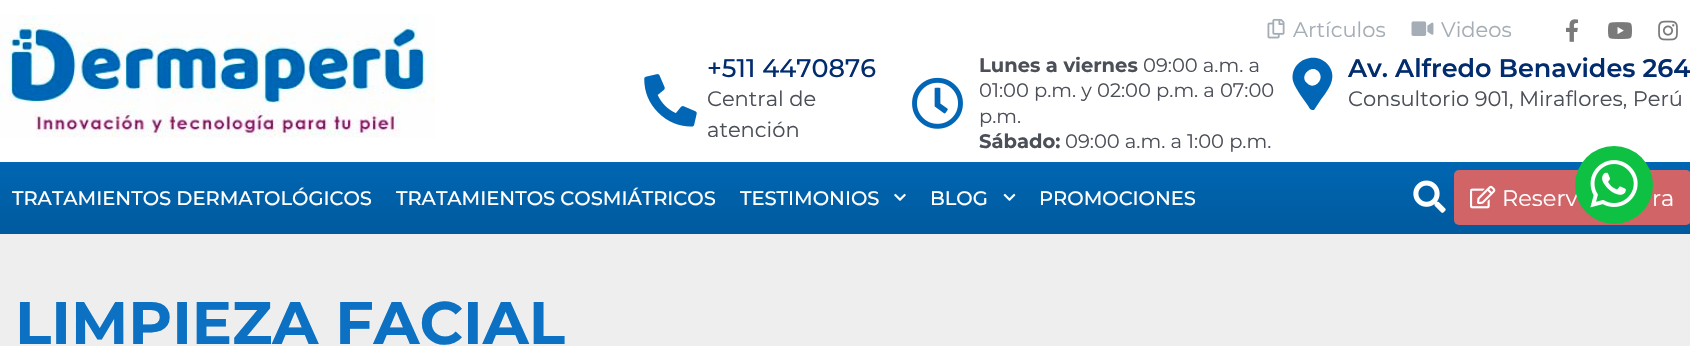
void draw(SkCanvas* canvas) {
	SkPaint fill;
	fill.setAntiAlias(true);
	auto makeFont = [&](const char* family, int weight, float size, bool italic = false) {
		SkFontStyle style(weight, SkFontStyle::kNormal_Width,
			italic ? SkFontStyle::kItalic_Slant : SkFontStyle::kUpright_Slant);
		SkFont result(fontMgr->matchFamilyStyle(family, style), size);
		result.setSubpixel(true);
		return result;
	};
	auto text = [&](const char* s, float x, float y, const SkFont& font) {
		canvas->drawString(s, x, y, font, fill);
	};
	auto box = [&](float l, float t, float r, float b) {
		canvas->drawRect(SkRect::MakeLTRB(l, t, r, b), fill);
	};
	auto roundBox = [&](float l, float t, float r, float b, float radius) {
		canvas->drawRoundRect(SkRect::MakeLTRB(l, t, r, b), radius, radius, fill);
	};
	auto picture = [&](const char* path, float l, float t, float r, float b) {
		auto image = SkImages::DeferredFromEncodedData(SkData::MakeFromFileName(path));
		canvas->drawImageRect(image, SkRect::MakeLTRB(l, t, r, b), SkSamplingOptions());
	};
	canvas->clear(0xFFFFFFFF);
	picture("image0.png", 0, 15, 435, 138);
	picture("image1.png", 1267, 18, 1285, 39);
	picture("image2.png", 1411, 21, 1434, 36);
	picture("image3.png", 1566, 19, 1578, 42);
	picture("image4.png", 1608, 22, 1632, 39);
	picture("image5.png", 1658, 20, 1678, 41);
	picture("image6.png", 644, 74, 697, 127);
	picture("image7.png", 912, 77, 963, 129);
	fill.setColor(0xFF0066B5);
	canvas->drawPath(SkPathBuilder().moveTo(1310, 109).cubicTo(1306, 102, 1295, 89, 1293, 81).cubicTo(1289, 60, 1317, 49, 1329, 66).cubicTo(1338, 79, 1327, 91, 1320, 101).lineTo(1314, 110).cubicTo(1313, 110, 1311, 110, 1310, 109).close().moveTo(1307, 83).cubicTo(1314, 91, 1326, 79, 1318, 71).cubicTo(1311, 64, 1299, 76, 1307, 83).close().detach(), fill);
	{
		const SkColor colors[] = {0xFF0066B2, 0xFF005A9E};
		const float stops[] = {0, 1};
		const SkPoint ends[] = {{845, 162}, {845, 234}};
		fill.setShader(SkGradientShader::MakeLinear(ends, colors, stops, 2, SkTileMode::kClamp));
		fill.setAlpha(255);
	}
	box(0, 162, 1690, 234);
	picture("image8.png", 894, 193, 906, 201);
	picture("image9.png", 1003, 193, 1016, 201);
	picture("image10.png", 1413, 180, 1446, 213);
	fill.setShader(nullptr);
	fill.setColor(0xFFD06467);
	roundBox(1454, 170, 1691, 225, 5);
	picture("image11.png", 1470, 185, 1496, 209);
	fill.setColor(0xFFEEEEEE);
	box(0, 234, 1690, 346);
	auto font1 = makeFont("Montserrat", 400, 21);
	fill.setColor(0xFFA5AEB6);
	text("Artículos", 1293, 37, font1);
	text("Videos", 1441, 37, font1);
	auto font2 = makeFont("Montserrat", 500, 25.5f);
	fill.setColor(0xFF012C6D);
	text("+511 4470876", 707, 77, font2);
	fill.setColor(0xFF4B4F58);
	text("Central de", 707, 106, font1);
	text("atención", 707, 137, font1);
	auto font3 = makeFont("Montserrat", 700, 19.5f);
	text("Lunes a viernes", 979, 72, font3);
	auto font4 = makeFont("Montserrat", 400, 19.5f);
	text("09:00 a.m. a", 1143, 72, font4);
	text("01:00 p.m. y 02:00 p.m. a 07:00", 979, 97, font4);
	text("p.m.", 979, 123, font4);
	text("Sábado:", 979, 148, font3);
	text("09:00 a.m. a 1:00 p.m.", 1065, 148, font4);
	auto font5 = makeFont("Montserrat", 600, 25.5f);
	fill.setColor(0xFF012C6D);
	text("Av. Alfredo Benavides 264", 1348, 77, font5);
	fill.setColor(0xFF4B4F58);
	text("Consultorio 901, Miraflores, Perú", 1348, 106, font1);
	auto font6 = makeFont("Montserrat", 500, 19.5f);
	fill.setColor(0xFFFFFFFF);
	text("TRATAMIENTOS DERMATOLÓGICOS", 12, 205, font6);
	text("TRATAMIENTOS COSMIÁTRICOS", 396, 205, font6);
	text("TESTIMONIOS", 740, 205, font6);
	text("BLOG", 930, 205, font6);
	text("PROMOCIONES", 1039, 205, font6);
	auto font7 = makeFont("Montserrat", 400, 22.5f);
	text("Reserv", 1502, 206, font7);
	text("ra", 1652, 206, font7);
	fill.setColor(0xFF0EC143);
	canvas->drawCircle(1614, 185, 39, fill);
	picture("image12.png", 1590, 160, 1638, 208);
	auto font8 = makeFont("Montserrat", 700, 60);
	fill.setColor(0xFF0C71C3);
	text("LIMPIEZA FACIAL", 15, 344, font8);
}
